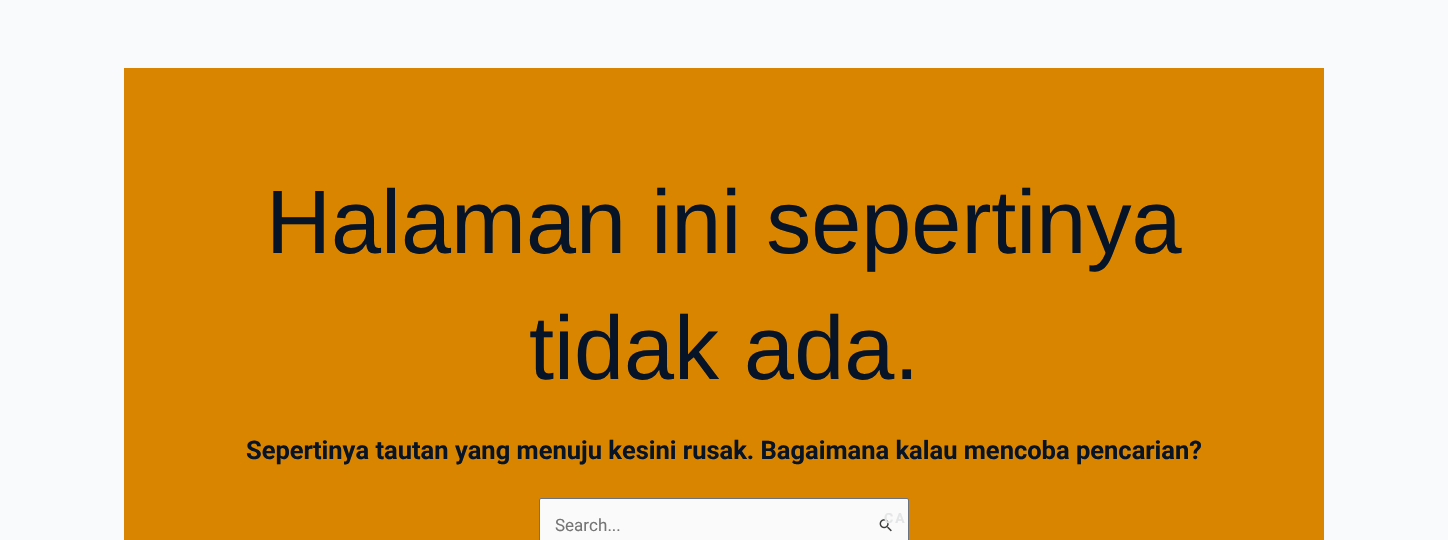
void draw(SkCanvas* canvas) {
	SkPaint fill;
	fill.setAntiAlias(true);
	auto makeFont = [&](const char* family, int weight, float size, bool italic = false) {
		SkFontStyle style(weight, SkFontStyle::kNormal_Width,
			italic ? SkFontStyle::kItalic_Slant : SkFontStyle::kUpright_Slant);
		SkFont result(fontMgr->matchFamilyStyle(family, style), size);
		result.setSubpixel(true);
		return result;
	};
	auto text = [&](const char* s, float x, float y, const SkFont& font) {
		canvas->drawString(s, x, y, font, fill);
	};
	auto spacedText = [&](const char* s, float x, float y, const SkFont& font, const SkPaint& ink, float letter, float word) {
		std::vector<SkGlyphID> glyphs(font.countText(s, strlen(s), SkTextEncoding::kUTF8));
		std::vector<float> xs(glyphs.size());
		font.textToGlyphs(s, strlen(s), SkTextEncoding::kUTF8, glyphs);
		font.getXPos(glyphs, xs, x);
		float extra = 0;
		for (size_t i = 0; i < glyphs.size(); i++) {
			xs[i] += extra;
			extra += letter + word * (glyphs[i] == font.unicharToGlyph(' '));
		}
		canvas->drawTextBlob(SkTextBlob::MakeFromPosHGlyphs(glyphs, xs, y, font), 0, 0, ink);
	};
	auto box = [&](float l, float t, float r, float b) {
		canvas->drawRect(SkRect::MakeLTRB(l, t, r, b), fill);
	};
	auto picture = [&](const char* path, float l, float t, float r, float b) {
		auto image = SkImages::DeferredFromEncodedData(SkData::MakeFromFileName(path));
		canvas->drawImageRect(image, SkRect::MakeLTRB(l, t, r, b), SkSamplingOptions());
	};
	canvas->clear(0xFFF9FAFB);
	fill.setColor(0xFFD98500);
	box(124, 68, 1324, 540);
	fill.setColor(0xFFFAFAFA);
	canvas->drawRoundRect(SkRect::MakeLTRB(539.5f, 498.5f, 908.5f, 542.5f), 1.5f, 1.5f, fill);
	fill.setStyle(SkPaint::kStroke_Style);
	fill.setStrokeWidth(1);
	fill.setColor(0xFF6B7280);
	canvas->drawRoundRect(SkRect::MakeLTRB(539.5f, 498.5f, 908.5f, 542.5f), 1.5f, 1.5f, fill);
	picture("image0.png", 879, 519, 892, 532);
	auto font1 = makeFont("Liberation Sans", 400, 90);
	fill.setStyle(SkPaint::kFill_Style);
	fill.setColor(0xFF071427);
	text("Halaman ini sepertinya", 266, 253, font1);
	text("tidak ada.", 529, 379, font1);
	auto font2 = makeFont("Roboto", 700, 25.5f);
	text("Sepertinya tautan yang menuju kesini rusak. Bagaimana kalau mencoba pencarian?", 246, 459, font2);
	auto font3 = makeFont("Roboto", 400, 17);
	fill.setColor(0xFF757575);
	text("Search...", 555, 531, font3);
	auto font4 = makeFont("Roboto", 600, 14);
	fill.setColor(0xFFE4E5E6);
	spacedText("CA", 884, 523, font4, fill, 2, 0);
}
